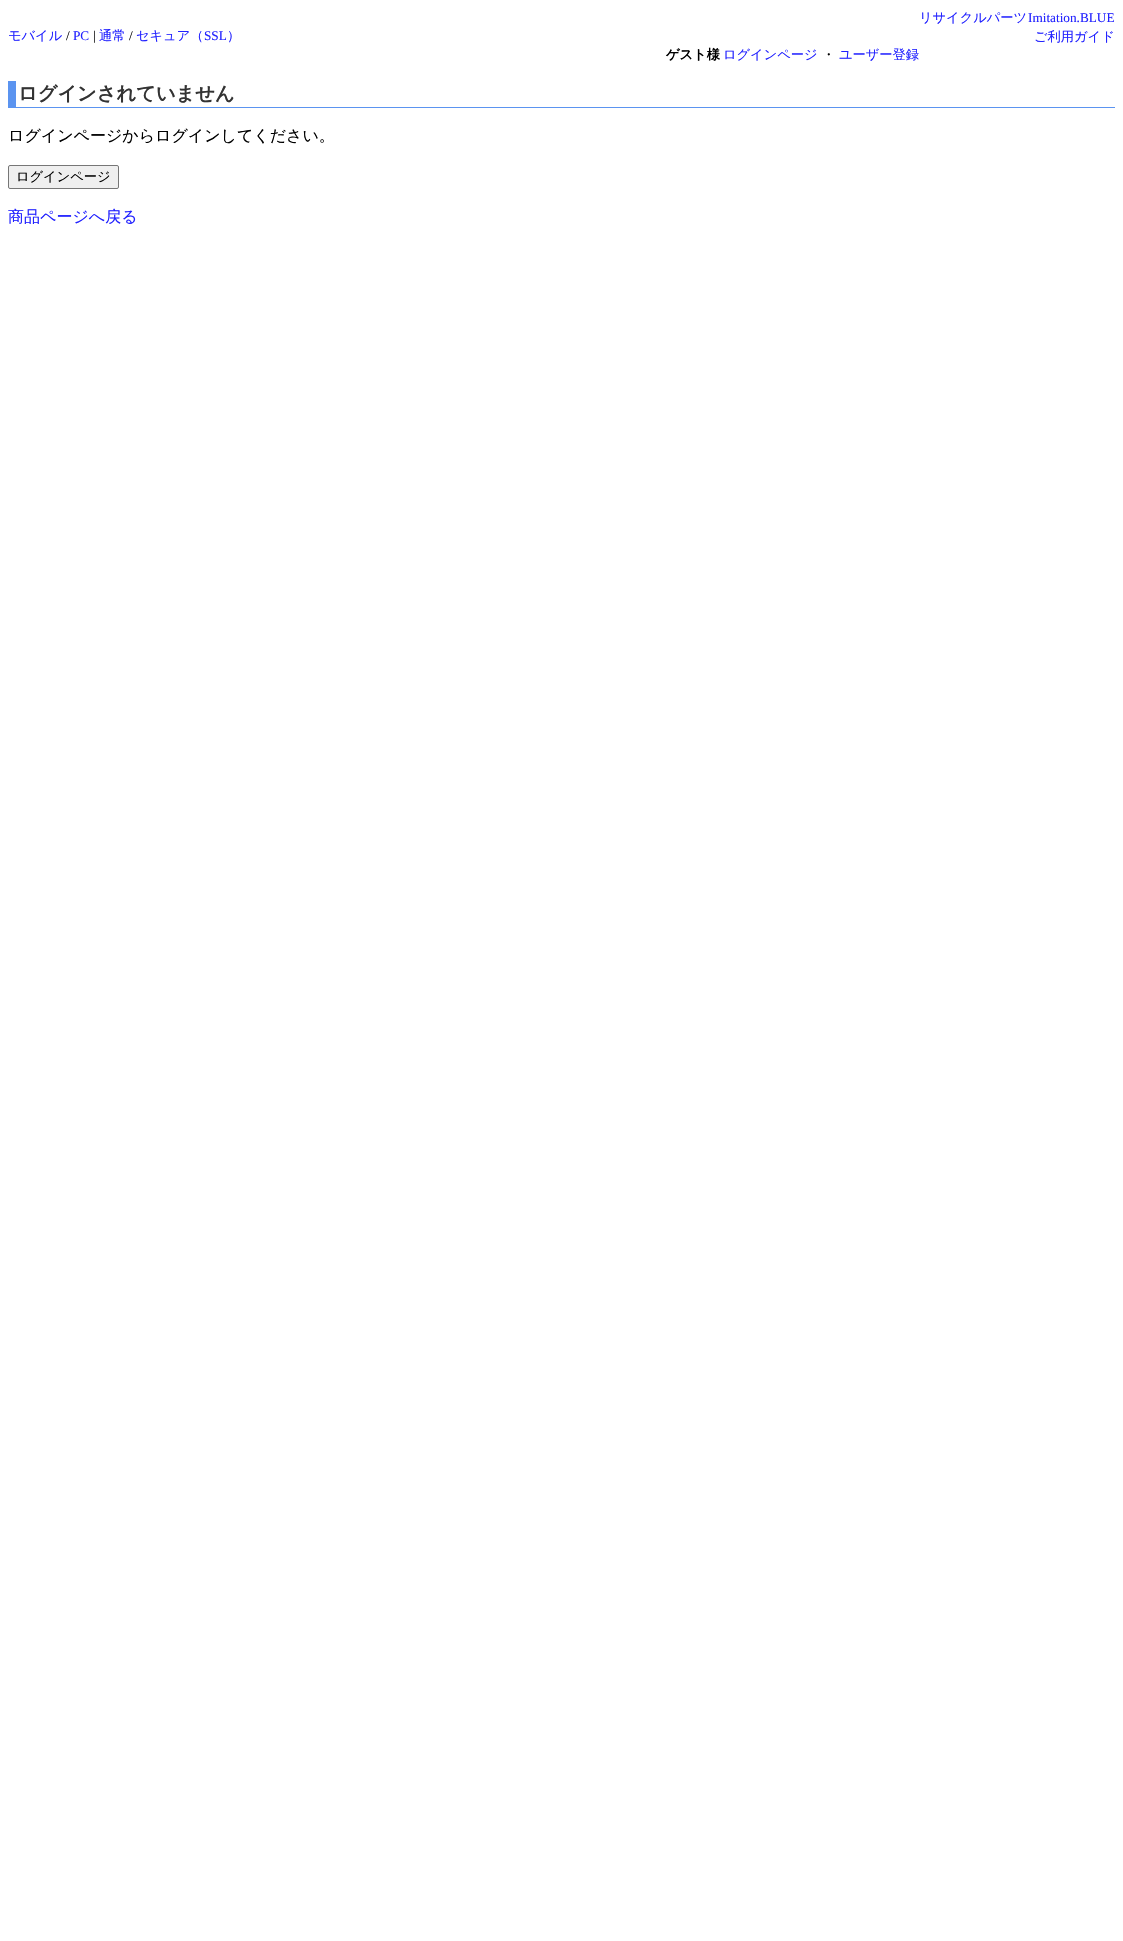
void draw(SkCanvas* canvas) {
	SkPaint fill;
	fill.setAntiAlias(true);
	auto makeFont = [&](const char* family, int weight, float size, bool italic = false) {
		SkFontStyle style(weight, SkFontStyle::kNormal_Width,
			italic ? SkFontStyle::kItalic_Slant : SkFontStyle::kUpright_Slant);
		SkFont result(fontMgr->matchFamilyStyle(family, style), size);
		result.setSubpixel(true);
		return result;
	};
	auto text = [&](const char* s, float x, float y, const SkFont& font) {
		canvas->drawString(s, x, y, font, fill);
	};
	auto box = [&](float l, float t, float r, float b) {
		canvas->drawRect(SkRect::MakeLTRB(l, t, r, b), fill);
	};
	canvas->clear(0xFFFFFFFF);
	fill.setColor(0xFF5B94F0);
	box(8, 107, 1115, 108);
	box(8, 81, 16, 108);
	fill.setColor(0xFFEFEFEF);
	canvas->drawRoundRect(SkRect::MakeLTRB(8.5f, 165.5f, 118.5f, 188.5f), 1.5f, 1.5f, fill);
	fill.setStyle(SkPaint::kStroke_Style);
	fill.setStrokeWidth(1);
	fill.setColor(0xFF767676);
	canvas->drawRoundRect(SkRect::MakeLTRB(8.5f, 165.5f, 118.5f, 188.5f), 1.5f, 1.5f, fill);
	auto font1 = makeFont("WenQuanYi Zen Hei", 500, 13.25f);
	fill.setStyle(SkPaint::kFill_Style);
	fill.setColor(0xFF2222FF);
	text("モバイル", 8, 40, font1);
	auto font2 = makeFont("Liberation Serif", 400, 13.25f);
	fill.setColor(0xFF000000);
	text("/", 66, 40, font2);
	fill.setColor(0xFF2222FF);
	text("PC", 73, 40, font2);
	fill.setColor(0xFF000000);
	text("|", 93, 40, font2);
	fill.setColor(0xFF2222FF);
	text("通常", 99, 40, font1);
	fill.setColor(0xFF000000);
	text("/", 129, 40, font2);
	fill.setColor(0xFF2222FF);
	text("セキュア（", 136, 40, font1);
	text("SSL", 204, 40, font2);
	text("）", 227, 40, font1);
	text("リサイクルパーツ", 919, 22, font1);
	text("Imitation.BLUE", 1028, 22, font2);
	text("ご利用ガイド", 1034, 41, font1);
	auto font3 = makeFont("WenQuanYi Zen Hei", 700, 13.25f);
	fill.setColor(0xFF000000);
	text("ゲスト様", 666, 59, font3);
	fill.setColor(0xFF2222FF);
	text("ログインページ", 723, 59, font1);
	fill.setColor(0xFF000000);
	text("・", 822, 59, font1);
	fill.setColor(0xFF2222FF);
	text("ユーザー登録", 839, 59, font1);
	auto font4 = makeFont("WenQuanYi Zen Hei", 700, 19.25f);
	fill.setColor(0xFF333333);
	text("ログインされていません", 18, 100, font4);
	auto font5 = makeFont("WenQuanYi Zen Hei", 500, 16);
	fill.setColor(0xFF000000);
	text("ログインページからログインしてください。", 8, 141, font5);
	text("ログインページ", 16, 181, font1);
	fill.setColor(0xFF2222FF);
	text("商品ページへ戻る", 8, 222, font5);
}
